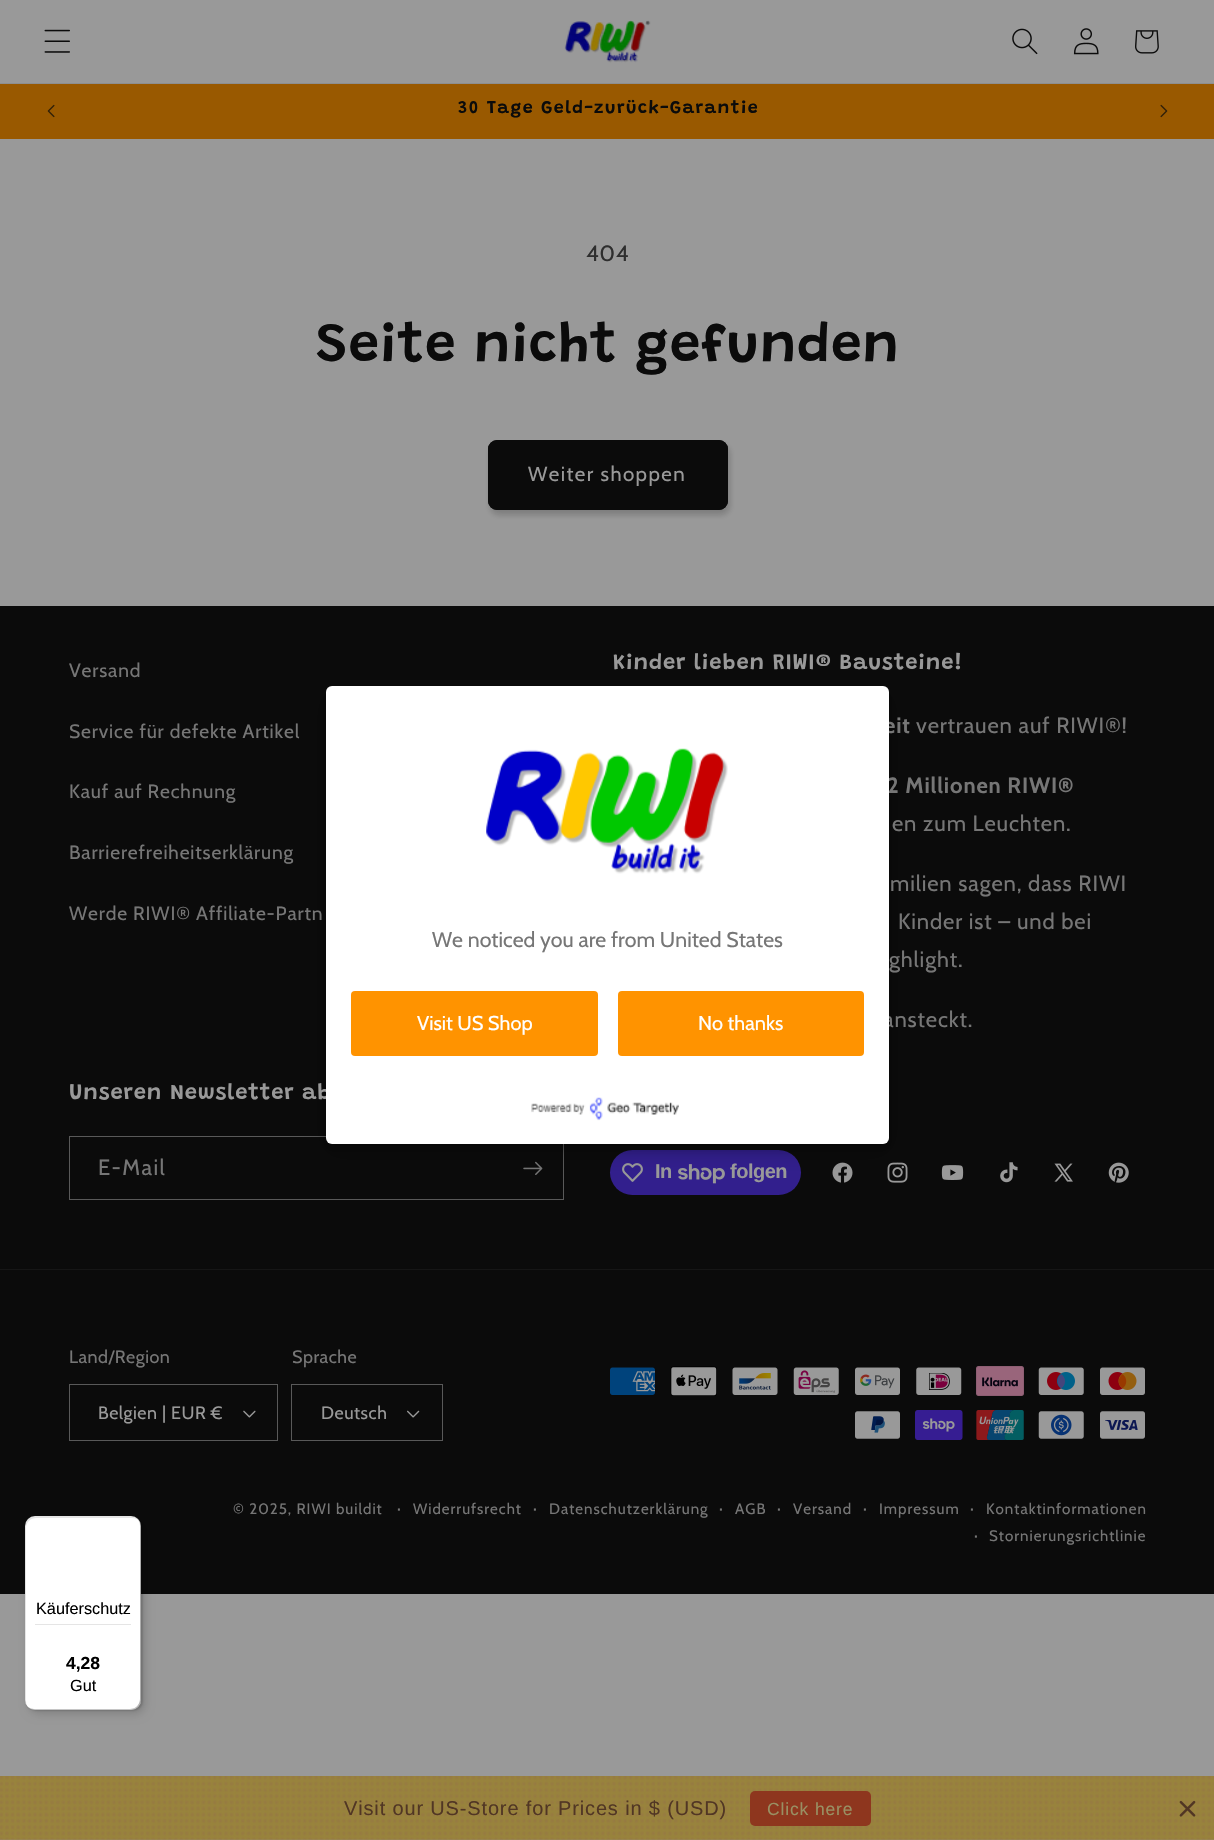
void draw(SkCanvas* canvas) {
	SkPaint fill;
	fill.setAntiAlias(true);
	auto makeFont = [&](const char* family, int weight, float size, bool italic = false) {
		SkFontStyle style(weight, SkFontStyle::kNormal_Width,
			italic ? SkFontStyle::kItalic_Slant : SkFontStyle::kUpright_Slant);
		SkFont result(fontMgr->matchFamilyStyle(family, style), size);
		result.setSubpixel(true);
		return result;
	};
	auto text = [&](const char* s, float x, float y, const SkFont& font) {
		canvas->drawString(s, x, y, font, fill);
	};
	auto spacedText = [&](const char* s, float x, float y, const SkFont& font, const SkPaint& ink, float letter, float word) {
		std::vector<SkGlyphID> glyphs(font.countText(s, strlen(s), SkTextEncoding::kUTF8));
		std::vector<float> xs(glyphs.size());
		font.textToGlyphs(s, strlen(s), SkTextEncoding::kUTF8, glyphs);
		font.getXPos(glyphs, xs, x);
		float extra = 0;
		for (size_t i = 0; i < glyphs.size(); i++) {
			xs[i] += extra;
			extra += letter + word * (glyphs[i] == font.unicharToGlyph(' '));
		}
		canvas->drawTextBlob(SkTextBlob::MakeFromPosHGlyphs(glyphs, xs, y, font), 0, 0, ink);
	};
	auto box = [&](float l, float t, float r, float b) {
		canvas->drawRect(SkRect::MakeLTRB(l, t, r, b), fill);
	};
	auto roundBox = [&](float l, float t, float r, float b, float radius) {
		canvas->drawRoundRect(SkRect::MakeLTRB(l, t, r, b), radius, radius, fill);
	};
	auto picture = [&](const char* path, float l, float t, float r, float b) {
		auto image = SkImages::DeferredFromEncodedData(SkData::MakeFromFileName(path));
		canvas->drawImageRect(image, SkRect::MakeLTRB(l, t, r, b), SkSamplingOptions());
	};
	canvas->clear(0xFF999999);
	fill.setColor(0xFF8E8E8E);
	box(0, 83, 1214, 84);
	picture("image0.png", 44, 29, 70, 53);
	picture("image1.png", 564, 20, 651, 63);
	picture("image2.png", 1012, 28, 1038, 55);
	picture("image3.png", 1073, 28, 1099, 55);
	picture("image4.png", 1135, 30, 1159, 54);
	fill.setColor(0xFF995900);
	box(0, 84, 1214, 139);
	picture("image5.png", 47, 104, 55, 118);
	picture("image6.png", 1160, 104, 1168, 118);
	fill.setColor(0x330B0B0B);
	fill.setMaskFilter(SkMaskFilter::MakeBlur(kNormal_SkBlurStyle, 3));
	canvas->drawRoundRect(SkRect::MakeLTRB(490, 445, 730, 515), 9, 9, fill);
	fill.setMaskFilter(nullptr);
	fill.setColor(0xFF0B0B0B);
	roundBox(488, 440, 728, 510, 9);
	fill.setStyle(SkPaint::kStroke_Style);
	fill.setStrokeWidth(4);
	canvas->drawRoundRect(SkRect::MakeLTRB(490, 442, 726, 508), 7, 7, fill);
	fill.setStyle(SkPaint::kFill_Style);
	box(0, 606, 1214, 1594);
	fill.setStyle(SkPaint::kStroke_Style);
	fill.setStrokeWidth(1);
	fill.setColor(0xFF595959);
	canvas->drawRect(SkRect::MakeLTRB(69.5f, 1136.5f, 563.5f, 1199.5f), fill);
	picture("image7.png", 523, 1161, 543, 1175);
	fill.setStyle(SkPaint::kFill_Style);
	fill.setColor(0xFF321F8D);
	roundBox(610, 1150, 801, 1195, 22.5f);
	picture("image8.png", 622, 1163, 643, 1182);
	picture("image9.png", 678, 1164, 725, 1184);
	picture("image10.png", 832, 1162, 853, 1183);
	picture("image11.png", 887, 1162, 908, 1183);
	picture("image12.png", 941, 1165, 964, 1180);
	picture("image13.png", 1000, 1162, 1018, 1183);
	picture("image14.png", 1054, 1163, 1073, 1182);
	picture("image15.png", 1108, 1162, 1129, 1183);
	fill.setColor(0xFF161616);
	box(0, 1269, 1214, 1270);
	picture("image16.png", 243, 1410, 256, 1418);
	fill.setStyle(SkPaint::kStroke_Style);
	fill.setColor(0xFF595959);
	canvas->drawRect(SkRect::MakeLTRB(69.5f, 1384.5f, 277.5f, 1440.5f), fill);
	picture("image17.png", 407, 1410, 420, 1418);
	canvas->drawRect(SkRect::MakeLTRB(291.5f, 1384.5f, 442.5f, 1440.5f), fill);
	picture("image18.png", 610, 1367, 655, 1395);
	picture("image19.png", 670, 1366, 717, 1396);
	picture("image20.png", 732, 1367, 778, 1395);
	picture("image21.png", 793, 1367, 839, 1395);
	picture("image22.png", 855, 1367, 900, 1395);
	picture("image23.png", 916, 1367, 962, 1395);
	picture("image24.png", 976, 1366, 1024, 1396);
	picture("image25.png", 1038, 1367, 1084, 1395);
	picture("image26.png", 1100, 1367, 1145, 1395);
	picture("image27.png", 855, 1411, 900, 1439);
	picture("image28.png", 915, 1410, 963, 1440);
	picture("image29.png", 976, 1410, 1024, 1440);
	picture("image30.png", 1038, 1411, 1084, 1439);
	picture("image31.png", 1100, 1411, 1145, 1439);
	fill.setStyle(SkPaint::kFill_Style);
	fill.setColor(0x30000000);
	fill.setMaskFilter(SkMaskFilter::MakeBlur(kNormal_SkBlurStyle, 12.5f));
	canvas->drawRoundRect(SkRect::MakeLTRB(326, 694, 889, 1151), 6, 6, fill);
	fill.setMaskFilter(nullptr);
	fill.setColor(0x33000000);
	fill.setMaskFilter(SkMaskFilter::MakeBlur(kNormal_SkBlurStyle, 5));
	canvas->drawRoundRect(SkRect::MakeLTRB(326, 691, 889, 1149), 6, 6, fill);
	fill.setMaskFilter(nullptr);
	fill.setColor(0x26000000);
	fill.setMaskFilter(SkMaskFilter::MakeBlur(kNormal_SkBlurStyle, 5));
	canvas->drawRoundRect(SkRect::MakeLTRB(29, 1520, 145, 1714), 10, 10, fill);
	fill.setMaskFilter(nullptr);
	fill.setMaskFilter(SkMaskFilter::MakeBlur(kNormal_SkBlurStyle, 1));
	canvas->drawRoundRect(SkRect::MakeLTRB(26, 1518, 143, 1711), 10, 10, fill);
	fill.setMaskFilter(nullptr);
	fill.setColor(0xFFFFFFFF);
	roundBox(25, 1516, 141, 1710, 10);
	fill.setColor(0x1A000000);
	canvas->drawPath(SkPathBuilder().moveTo(36, 1518).lineTo(132, 1518).cubicTo(135, 1518, 138, 1519, 140, 1522).cubicTo(138, 1518, 135, 1516, 131, 1516).lineTo(35, 1516).cubicTo(29, 1516, 25, 1520, 25, 1526).lineTo(25, 1700).cubicTo(25, 1703, 26, 1706, 28, 1708).cubicTo(27, 1706, 26, 1704, 26, 1701).lineTo(26, 1528).cubicTo(26, 1522, 31, 1518, 36, 1518).close().detach(), fill);
	fill.setColor(0x33000000);
	canvas->drawPath(SkPathBuilder().moveTo(27, 1707).cubicTo(29, 1709, 32, 1710, 35, 1710).lineTo(131, 1710).cubicTo(137, 1710, 141, 1706, 141, 1700).lineTo(141, 1526).cubicTo(141, 1524, 140, 1521, 139, 1520).cubicTo(140, 1521, 140, 1523, 140, 1525).lineTo(140, 1699).cubicTo(140, 1704, 136, 1709, 130, 1709).lineTo(34, 1709).cubicTo(31, 1709, 29, 1708, 27, 1707).close().detach(), fill);
	fill.setColor(0x33323232);
	canvas->drawPath(SkPathBuilder().moveTo(27, 1706).cubicTo(29, 1709, 32, 1710, 35, 1710).lineTo(131, 1710).cubicTo(137, 1710, 141, 1706, 141, 1700).lineTo(141, 1526).cubicTo(141, 1520, 137, 1516, 131, 1516).lineTo(130, 1516).cubicTo(136, 1516, 140, 1520, 140, 1526).lineTo(140, 1699).cubicTo(140, 1705, 136, 1709, 130, 1709).lineTo(34, 1709).cubicTo(32, 1709, 29, 1708, 27, 1706).close().detach(), fill);
	fill.setColor(0x4DFFFFFF);
	canvas->drawPath(SkPathBuilder(SkPathFillType::kEvenOdd).moveTo(27, 1706).cubicTo(29, 1709, 32, 1710, 35, 1710).lineTo(131, 1710).cubicTo(137, 1710, 141, 1706, 141, 1700).lineTo(141, 1699).cubicTo(141, 1705, 136, 1709, 131, 1709).lineTo(34, 1709).cubicTo(32, 1709, 29, 1708, 27, 1706).close().moveTo(139, 1520).cubicTo(137, 1517, 134, 1516, 131, 1516).cubicTo(134, 1516, 137, 1517, 139, 1520).close().detach(), fill);
	fill.setColor(0xFFE5E5E5);
	box(35, 1624, 131, 1625);
	picture("image34.png", 0, 1776, 1214, 1840);
	fill.setColor(0xFF8E361E);
	roundBox(750, 1791, 871, 1826, 5);
	picture("image35.png", 1179, 1800, 1196, 1817);
	auto font1 = makeFont("Grandstander", 600, 17.9f);
	fill.setColor(0xFF0B0B0B);
	spacedText("30 Tage Geld-zurück-Garantie", 458, 113, font1, fill, 1.4f, 0);
	auto font2 = makeFont("Cabin", 400, 22);
	fill.setColor(0xFF2E2E2E);
	spacedText("404", 586, 261, font2, fill, 0.85f, 0);
	auto font3 = makeFont("Grandstander", 600, 55);
	fill.setColor(0xFF0B0B0B);
	spacedText("Seite nicht gefunden", 316, 361, font3, fill, 0.85f, 0);
	auto font4 = makeFont("Cabin", 400, 20.5f);
	fill.setColor(0xFF999999);
	spacedText("Weiter shoppen", 528, 481, font4, fill, 1.4f, 0);
	auto font5 = makeFont("Cabin", 400, 19.25f);
	fill.setColor(0xFF767676);
	spacedText("Versand", 69, 677, font5, fill, 0.85f, 0);
	spacedText("Service für defekte Artikel", 69, 738, font5, fill, 0.85f, 0);
	spacedText("Kauf auf Rechnung", 69, 798, font5, fill, 0.85f, 0);
	spacedText("Barrierefreiheitserklärung", 69, 859, font5, fill, 0.85f, 0);
	spacedText("Werde RIWI® Affiliate-Partn", 69, 920, font5, fill, 0.85f, 0);
	auto font6 = makeFont("Grandstander", 600, 22);
	fill.setColor(0xFF999999);
	spacedText("Kinder lieben RIWI® Bausteine!", 613, 669, font6, fill, 0.85f, 0);
	auto font7 = makeFont("Cabin", 700, 22);
	fill.setColor(0xFF767676);
	spacedText("eit", 884, 733, font7, fill, 0.85f, 0);
	spacedText("vertrauen auf RIWI®!", 916, 733, font2, fill, 0.85f, 0);
	spacedText("2 Millionen RIWI®", 887, 793, font7, fill, 0.85f, 0);
	spacedText("en zum Leuchten.", 892, 831, font2, fill, 0.85f, 0);
	spacedText("milien sagen, dass RIWI", 890, 891, font2, fill, 0.85f, 0);
	spacedText("Kinder ist – und bei", 898, 929, font2, fill, 0.85f, 0);
	spacedText("ghlight.", 889, 967, font2, fill, 0.85f, 0);
	spacedText("ansteckt.", 883, 1027, font2, fill, 0.85f, 0);
	fill.setColor(0xFF999999);
	spacedText("Unseren Newsletter ab", 69, 1099, font6, fill, 0.85f, 0);
	fill.setColor(0xFF767676);
	spacedText("E-Mail", 98, 1175, font2, fill, 1.4f, 0);
	auto font8 = makeFont("Liberation Sans", 700, 20);
	fill.setColor(0xFF999999);
	spacedText("In", 655, 1178, font8, fill, -0.5f, 0);
	spacedText("folgen", 730, 1178, font8, fill, -0.5f, 0);
	auto font9 = makeFont("Cabin", 400, 17.9f);
	fill.setColor(0xFF767676);
	spacedText("Land/Region", 69, 1363, font9, fill, 0.5f, 0);
	fill.setColor(0xFF999999);
	spacedText("Belgien | EUR €", 98, 1419, font9, fill, 0.5f, 0);
	fill.setColor(0xFF767676);
	spacedText("Sprache", 292, 1363, font9, fill, 0.5f, 0);
	fill.setColor(0xFF999999);
	spacedText("Deutsch", 321, 1419, font9, fill, 0.5f, 0);
	auto font10 = makeFont("Cabin", 400, 15.1f);
	fill.setColor(0xFF767676);
	spacedText("© 2025, RIWI buildit", 233, 1514, font10, fill, 1, 0);
	auto font11 = makeFont("Cabin", 400, 16);
	spacedText("·", 397, 1514, font11, fill, 1, 0);
	spacedText("Widerrufsrecht", 413, 1514, font10, fill, 1, 0);
	spacedText("·", 533, 1514, font11, fill, 1, 0);
	spacedText("Datenschutzerklärung", 549, 1514, font10, fill, 1, 0);
	spacedText("·", 719, 1514, font11, fill, 1, 0);
	spacedText("AGB", 735, 1514, font10, fill, 1, 0);
	spacedText("·", 777, 1514, font11, fill, 1, 0);
	spacedText("Versand", 793, 1514, font10, fill, 1, 0);
	spacedText("·", 863, 1514, font11, fill, 1, 0);
	spacedText("Impressum", 879, 1514, font10, fill, 1, 0);
	spacedText("·", 970, 1514, font11, fill, 1, 0);
	spacedText("Kontaktinformationen", 986, 1514, font10, fill, 1, 0);
	spacedText("·", 974, 1541, font11, fill, 1, 0);
	spacedText("Stornierungsrichtlinie", 989, 1541, font10, fill, 1, 0);
	fill.setColor(0xFFFFFFFF);
	roundBox(326, 686, 889, 1144, 6);
	picture("image32.png", 486, 748, 728, 874);
	auto font12 = makeFont("Cabin", 400, 21.25f);
	fill.setColor(0xFF767676);
	text("We noticed you are from United States", 432, 947, font12);
	fill.setColor(0xFFFF9300);
	roundBox(351, 991, 598, 1056, 4);
	auto font13 = makeFont("Cabin", 400, 20);
	fill.setColor(0xFFFFFFFF);
	text("Visit US Shop", 417, 1030, font13);
	fill.setColor(0xFFFF9300);
	roundBox(618, 991, 864, 1056, 4);
	fill.setColor(0xFFFFFFFF);
	text("No thanks", 698, 1030, font13);
	picture("image33.png", 531, 1097, 679, 1121);
	auto font14 = makeFont("Liberation Sans", 400, 16.25f);
	fill.setColor(0xFF000000);
	text("Käuferschutz", 36, 1614, font14);
	auto font15 = makeFont("Liberation Sans", 700, 17.5f);
	text("4,28", 66, 1669, font15);
	text("Gut", 70, 1691, font14);
	auto font16 = makeFont("Liberation Sans", 400, 20);
	fill.setColor(0xFF513624);
	spacedText("Visit our US-Store for Prices in $ (USD)", 344, 1815, font16, fill, 0.85f, 0);
	auto font17 = makeFont("Liberation Sans", 400, 17.5f);
	fill.setColor(0xFF999063);
	spacedText("Click here", 767, 1815, font17, fill, 0.85f, 0);
}
